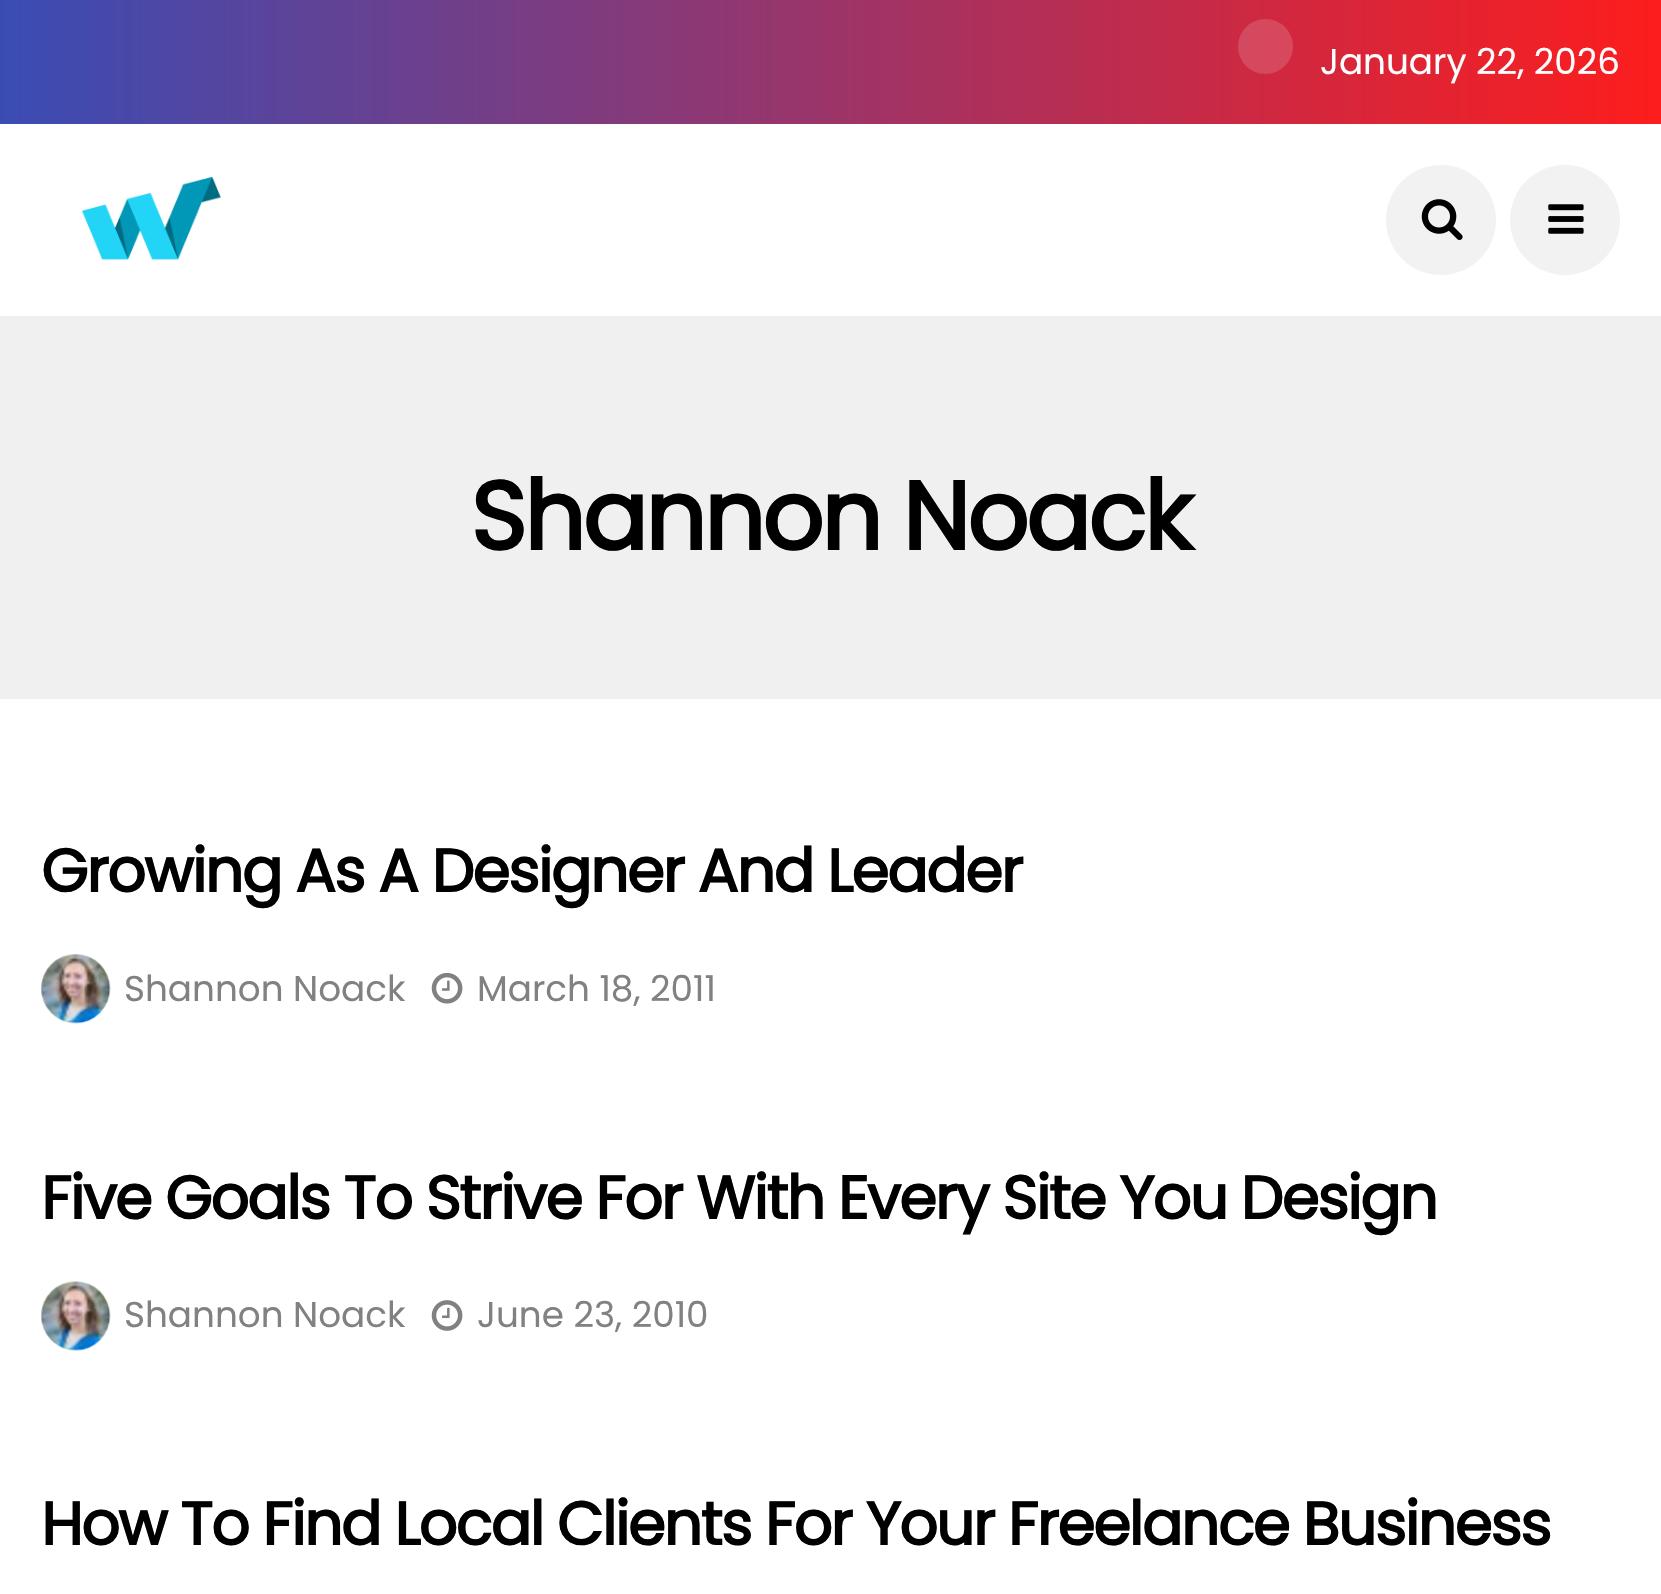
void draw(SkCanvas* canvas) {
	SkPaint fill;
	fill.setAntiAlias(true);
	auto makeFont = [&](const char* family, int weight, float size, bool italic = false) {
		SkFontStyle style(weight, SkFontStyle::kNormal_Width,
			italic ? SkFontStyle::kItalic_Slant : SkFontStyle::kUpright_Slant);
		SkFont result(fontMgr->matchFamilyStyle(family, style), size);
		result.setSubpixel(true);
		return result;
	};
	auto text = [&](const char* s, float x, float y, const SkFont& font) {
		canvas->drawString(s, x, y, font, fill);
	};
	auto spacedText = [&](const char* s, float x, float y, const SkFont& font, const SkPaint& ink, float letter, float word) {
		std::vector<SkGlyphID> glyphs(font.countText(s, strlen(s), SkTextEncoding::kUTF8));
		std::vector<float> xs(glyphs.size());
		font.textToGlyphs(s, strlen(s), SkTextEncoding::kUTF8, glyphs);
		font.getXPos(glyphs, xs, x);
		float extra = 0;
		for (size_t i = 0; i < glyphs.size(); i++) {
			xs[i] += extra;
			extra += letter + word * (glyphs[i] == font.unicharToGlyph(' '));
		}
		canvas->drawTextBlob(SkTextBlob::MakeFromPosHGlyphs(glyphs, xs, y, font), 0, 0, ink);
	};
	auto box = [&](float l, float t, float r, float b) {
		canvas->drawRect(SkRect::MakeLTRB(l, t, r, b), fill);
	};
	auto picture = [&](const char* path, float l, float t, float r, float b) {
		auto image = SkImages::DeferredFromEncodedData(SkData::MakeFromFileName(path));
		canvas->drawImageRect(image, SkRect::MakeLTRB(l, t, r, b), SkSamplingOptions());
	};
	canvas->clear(0xFFFFFFFF);
	{
		const SkColor colors[] = {0xFF3A4CB4, 0xFFFD1D1D};
		const float stops[] = {0, 1};
		const SkPoint ends[] = {{0, 62}, {1661, 62}};
		fill.setShader(SkGradientShader::MakeLinear(ends, colors, stops, 2, SkTileMode::kClamp));
		fill.setAlpha(255);
	}
	box(0, 0, 1661, 124);
	fill.setShader(nullptr);
	fill.setColor(0x26FFFFFF);
	canvas->drawCircle(1265.5f, 46.5f, 27.5f, fill);
	fill.setColor(0xFFEEEEEE);
	box(0, 316, 1661, 319);
	picture("image0.png", 81, 176, 221, 260);
	fill.setColor(0xFFF2F2F2);
	canvas->drawCircle(1441, 220, 55, fill);
	picture("image1.png", 1421, 199, 1463, 240);
	canvas->drawCircle(1565, 220, 55, fill);
	picture("image2.png", 1548, 204, 1584, 234);
	fill.setColor(0xFFF0F0F0);
	box(0, 319, 1661, 699);
	picture("image3.png", 41, 954, 111, 1024);
	picture("image4.png", 431, 972, 463, 1004);
	picture("image5.png", 41, 1281, 111, 1351);
	picture("image6.png", 431, 1300, 463, 1331);
	auto font1 = makeFont("Poppins", 400, 35.75f);
	fill.setColor(0xFFFFFFFF);
	text("January 22, 2026", 1320, 74, font1);
	auto font2 = makeFont("Poppins", 700, 96.25f);
	fill.setColor(0xFF000000);
	spacedText("Shannon Noack", 470, 550, font2, fill, -2.9f, 0);
	auto font3 = makeFont("Poppins", 700, 60.5f);
	spacedText("Growing As A Designer And Leader", 41, 892, font3, fill, -1.82f, 0);
	fill.setColor(0xFF818181);
	text("Shannon Noack", 124, 1001, font1);
	text("March 18, 2011", 477, 1001, font1);
	fill.setColor(0xFF000000);
	spacedText("Five Goals To Strive For With Every Site You Design", 41, 1219, font3, fill, -1.82f, 0);
	fill.setColor(0xFF818181);
	text("Shannon Noack", 124, 1327, font1);
	text("June 23, 2010", 477, 1327, font1);
	fill.setColor(0xFF000000);
	spacedText("How To Find Local Clients For Your Freelance Business", 41, 1545, font3, fill, -1.82f, 0);
}
